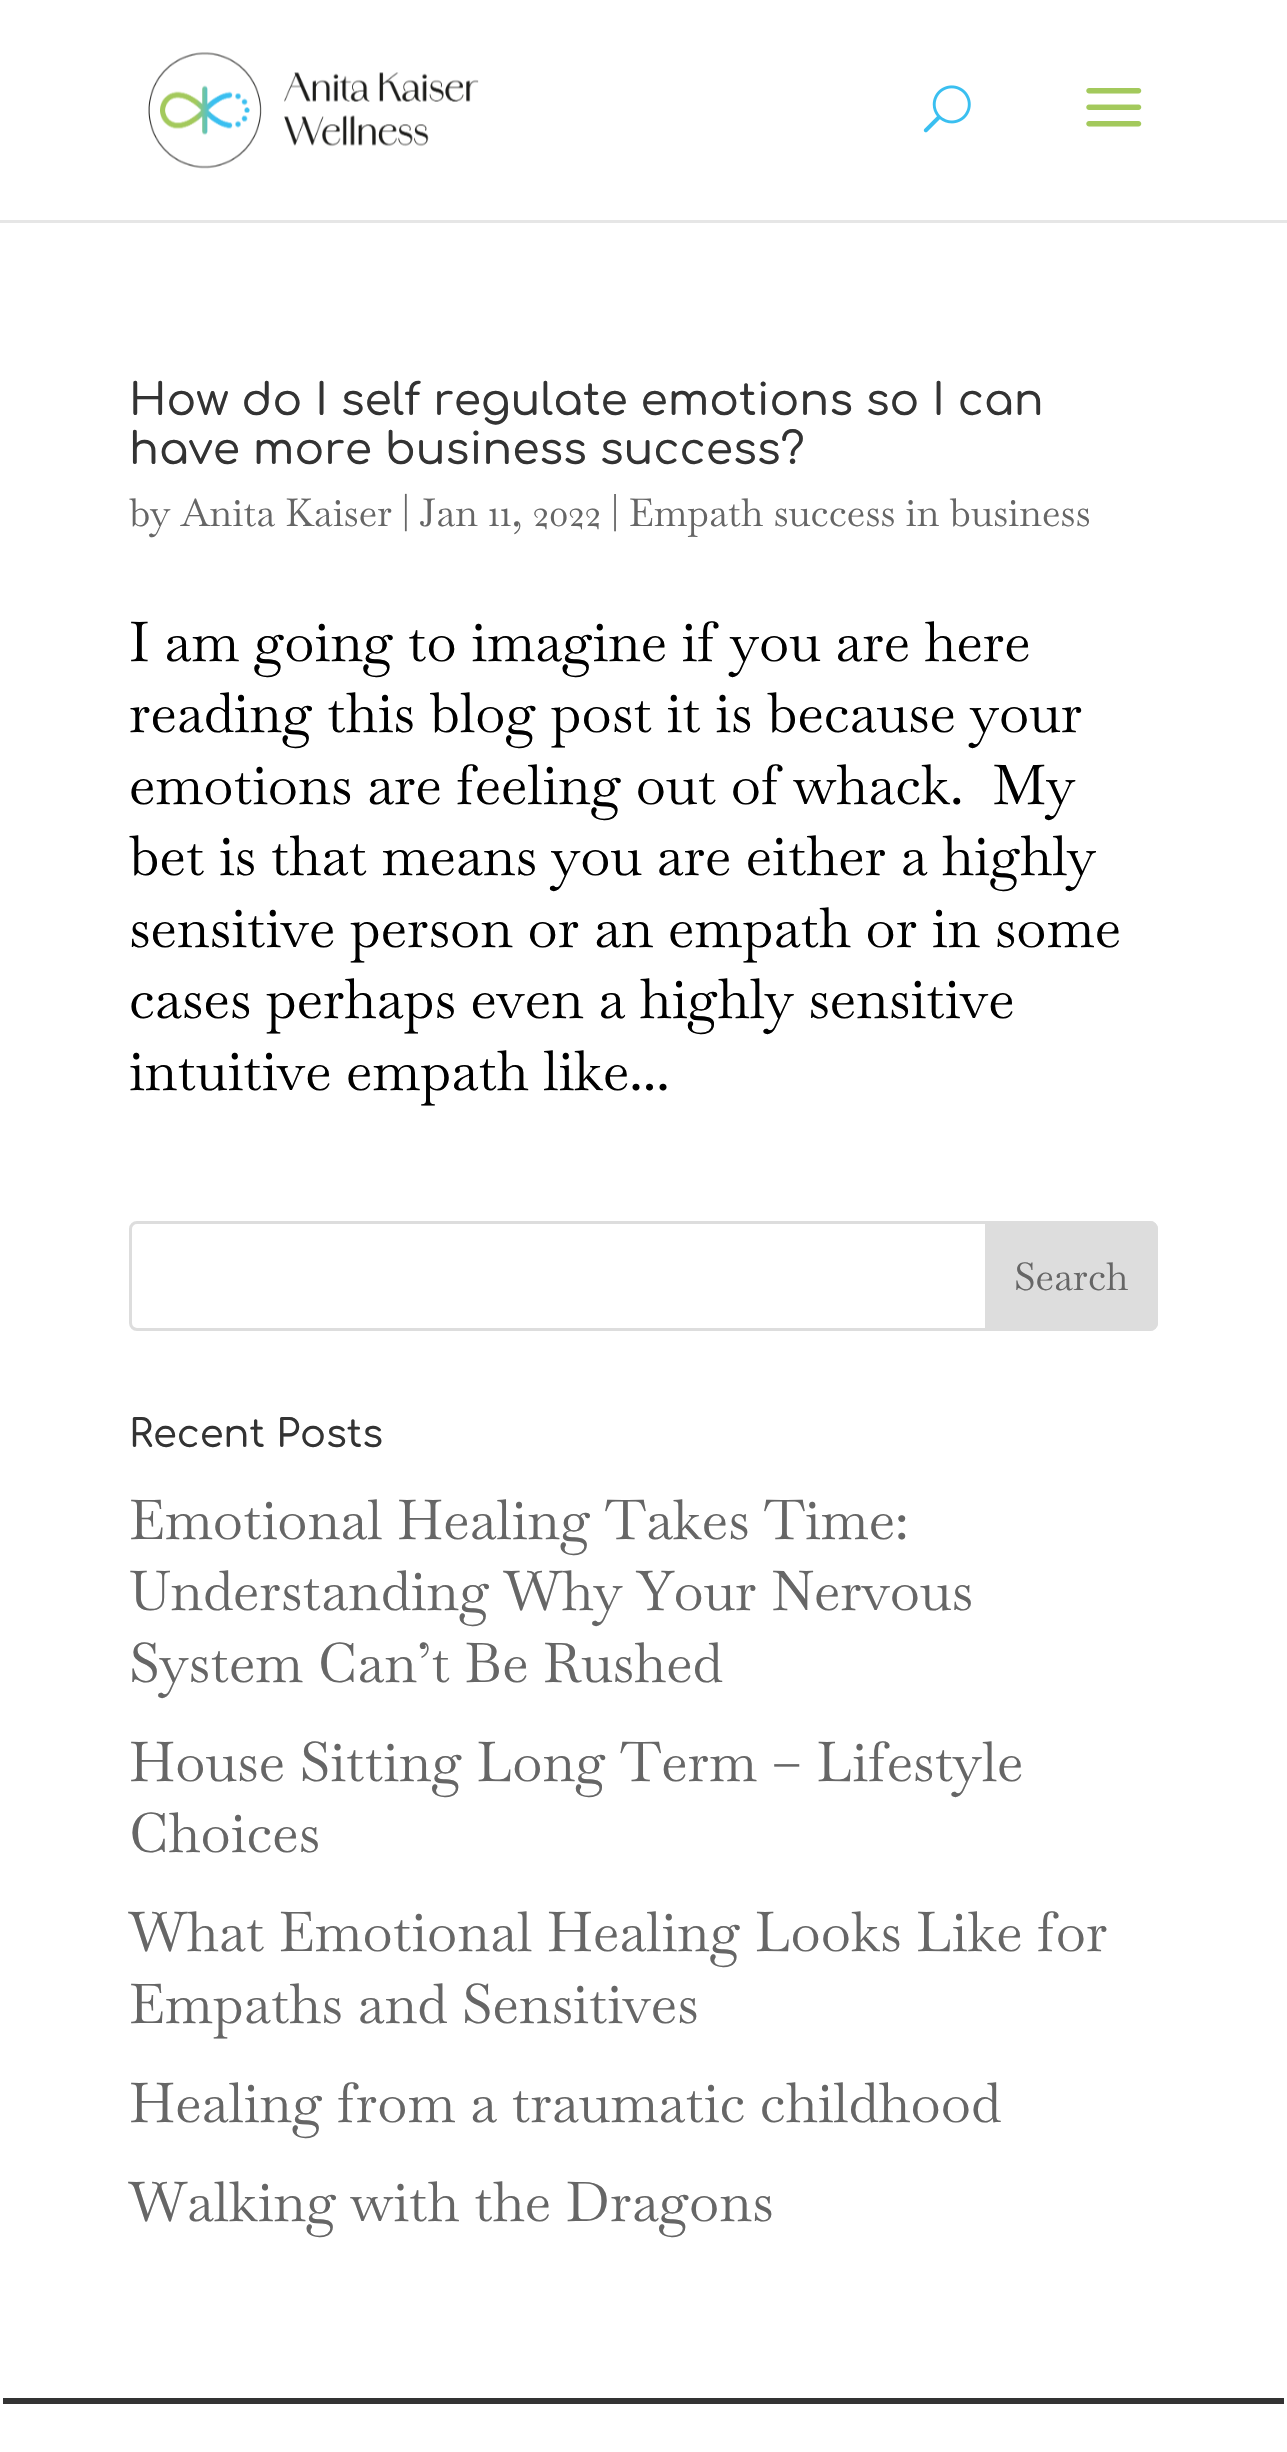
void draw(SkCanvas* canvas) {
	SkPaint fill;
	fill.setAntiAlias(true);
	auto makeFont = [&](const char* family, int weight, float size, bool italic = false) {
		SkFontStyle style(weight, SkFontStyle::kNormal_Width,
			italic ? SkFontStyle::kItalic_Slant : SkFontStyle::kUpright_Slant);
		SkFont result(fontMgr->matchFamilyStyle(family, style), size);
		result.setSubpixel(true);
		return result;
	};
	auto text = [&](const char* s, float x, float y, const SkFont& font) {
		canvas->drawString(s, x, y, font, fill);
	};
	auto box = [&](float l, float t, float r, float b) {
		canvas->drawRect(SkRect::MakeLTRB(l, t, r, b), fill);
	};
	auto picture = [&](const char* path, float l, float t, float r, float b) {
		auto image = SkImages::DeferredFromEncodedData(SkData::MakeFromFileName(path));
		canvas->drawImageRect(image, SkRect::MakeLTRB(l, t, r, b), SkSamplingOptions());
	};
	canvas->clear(0xFFFFFFFF);
	fill.setColor(0xFFE6E6E6);
	box(0, 220, 1287, 223);
	picture("image0.png", 148, 52, 479, 169);
	picture("image1.png", 923, 85, 971, 133);
	picture("image2.png", 1086, 88, 1142, 127);
	fill.setStyle(SkPaint::kStroke_Style);
	fill.setStrokeWidth(3);
	fill.setColor(0xFFDDDDDD);
	canvas->drawRoundRect(SkRect::MakeLTRB(130.5f, 1222.5f, 1156.5f, 1329.5f), 6.5f, 6.5f, fill);
	fill.setStyle(SkPaint::kFill_Style);
	canvas->drawPath(SkPathBuilder().moveTo(986.5f, 1222.5f).lineTo(1150, 1222.5f).cubicTo(1153.5f, 1222.5f, 1156.5f, 1225.5f, 1156.5f, 1229).lineTo(1156.5f, 1323).cubicTo(1156.5f, 1326.5f, 1153.5f, 1329.5f, 1150, 1329.5f).lineTo(986.5f, 1329.5f).close().detach(), fill);
	fill.setStyle(SkPaint::kStroke_Style);
	canvas->drawPath(SkPathBuilder().moveTo(986.5f, 1222.5f).lineTo(1150, 1222.5f).cubicTo(1153.5f, 1222.5f, 1156.5f, 1225.5f, 1156.5f, 1229).lineTo(1156.5f, 1323).cubicTo(1156.5f, 1326.5f, 1153.5f, 1329.5f, 1150, 1329.5f).lineTo(986.5f, 1329.5f).close().detach(), fill);
	fill.setStyle(SkPaint::kFill_Style);
	fill.setColor(0xFF333333);
	box(3, 2398, 1284, 2404);
	auto font1 = makeFont("Comfortaa", 500, 44);
	text("How do I self regulate emotions so I can", 129, 415, font1);
	text("have more business success?", 129, 464, font1);
	auto font2 = makeFont("Baskervville", 400, 38.5f);
	fill.setColor(0xFF666666);
	text("by Anita Kaiser | Jan 11, 2022 | Empath success in business", 129, 526, font2);
	auto font3 = makeFont("Baskervville", 400, 55);
	fill.setColor(0xFF000000);
	text("I am going to imagine if you are here", 129, 661, font3);
	text("reading this blog post it is because your", 129, 732, font3);
	text("emotions are feeling out of whack.  My", 129, 804, font3);
	text("bet is that means you are either a highly", 129, 875, font3);
	text("sensitive person or an empath or in some", 129, 947, font3);
	text("cases perhaps even a highly sensitive", 129, 1018, font3);
	text("intuitive empath like...", 129, 1090, font3);
	fill.setColor(0xFF666666);
	text("Search", 1014, 1290, font2);
	auto font4 = makeFont("Comfortaa", 500, 38.5f);
	fill.setColor(0xFF333333);
	text("Recent Posts", 129, 1447, font4);
	fill.setColor(0xFF666666);
	text("Emotional Healing Takes Time:", 129, 1539, font3);
	text("Understanding Why Your Nervous", 129, 1610, font3);
	text("System Can’t Be Rushed", 129, 1682, font3);
	text("House Sitting Long Term – Lifestyle", 129, 1781, font3);
	text("Choices", 129, 1852, font3);
	text("What Emotional Healing Looks Like for", 129, 1951, font3);
	text("Empaths and Sensitives", 129, 2023, font3);
	text("Healing from a traumatic childhood", 129, 2122, font3);
	text("Walking with the Dragons", 129, 2221, font3);
}
